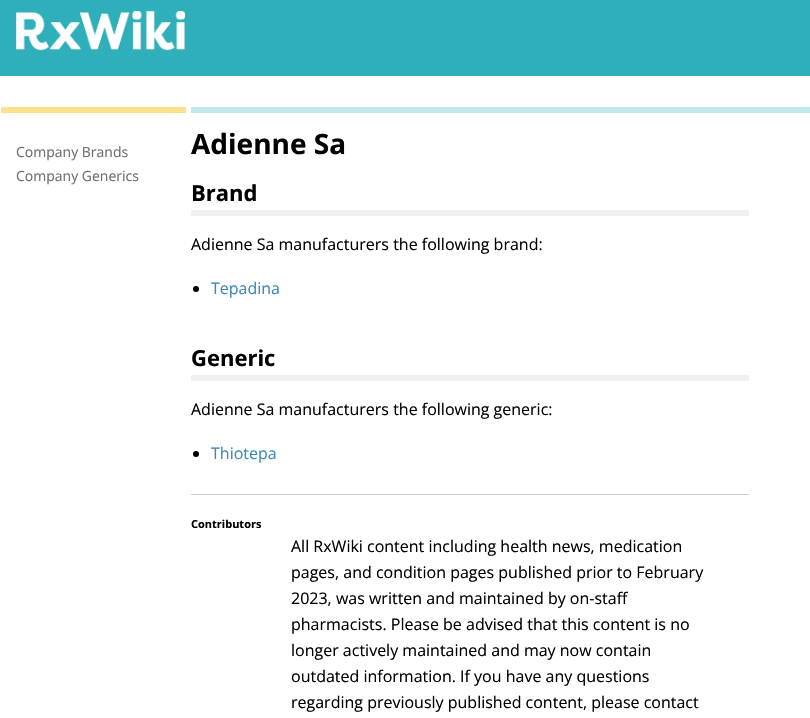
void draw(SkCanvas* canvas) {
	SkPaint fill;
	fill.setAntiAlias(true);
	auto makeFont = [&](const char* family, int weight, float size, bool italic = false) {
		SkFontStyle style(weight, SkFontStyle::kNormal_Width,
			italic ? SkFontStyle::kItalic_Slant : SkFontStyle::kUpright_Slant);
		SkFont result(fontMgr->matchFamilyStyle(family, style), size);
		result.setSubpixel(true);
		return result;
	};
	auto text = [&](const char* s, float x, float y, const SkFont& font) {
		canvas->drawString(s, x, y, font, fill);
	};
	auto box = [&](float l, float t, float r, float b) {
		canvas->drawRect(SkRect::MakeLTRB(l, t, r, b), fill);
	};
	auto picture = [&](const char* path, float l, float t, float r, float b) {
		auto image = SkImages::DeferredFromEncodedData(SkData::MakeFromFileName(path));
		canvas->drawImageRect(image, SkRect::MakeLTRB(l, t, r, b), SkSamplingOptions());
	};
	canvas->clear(0xFFFFFFFF);
	fill.setColor(0xFF2FAFB9);
	box(0, 0, 810, 76);
	picture("image0.png", 16, 11, 185, 51);
	fill.setColor(0xFFFBE18D);
	box(1, 107, 186, 113);
	fill.setColor(0xFFC2E8EB);
	box(191, 107, 810, 113);
	fill.setColor(0xFFF0F0F0);
	box(191, 210, 749, 216);
	fill.setColor(0xFF000000);
	canvas->drawCircle(196, 289, 3, fill);
	fill.setColor(0xFFF0F0F0);
	box(191, 375, 749, 381);
	fill.setColor(0xFF000000);
	canvas->drawCircle(196, 454, 3, fill);
	fill.setColor(0xFFCCCCCC);
	box(191, 494, 749, 495);
	auto font1 = makeFont("Open Sans", 400, 14);
	fill.setColor(0xFF6C6C6C);
	text("Company Brands", 16, 157, font1);
	text("Company Generics", 16, 181, font1);
	auto font2 = makeFont("Open Sans", 700, 28);
	fill.setColor(0xFF000000);
	text("Adienne Sa", 191, 154, font2);
	auto font3 = makeFont("Open Sans", 700, 22);
	text("Brand", 191, 201, font3);
	auto font4 = makeFont("Open Sans", 400, 16);
	text("Adienne Sa manufacturers the following brand:", 191, 250, font4);
	fill.setColor(0xFF3789B9);
	text("Tepadina", 211, 294, font4);
	fill.setColor(0xFF000000);
	text("Generic", 191, 366, font3);
	text("Adienne Sa manufacturers the following generic:", 191, 415, font4);
	fill.setColor(0xFF3789B9);
	text("Thiotepa", 211, 459, font4);
	auto font5 = makeFont("Open Sans", 700, 11);
	fill.setColor(0xFF000000);
	text("Contributors", 191, 528, font5);
	text("All RxWiki content including health news, medication", 291, 552, font4);
	text("pages, and condition pages published prior to February", 291, 578, font4);
	text("2023, was written and maintained by on-staff", 291, 604, font4);
	text("pharmacists. Please be advised that this content is no", 291, 630, font4);
	text("longer actively maintained and may now contain", 291, 656, font4);
	text("outdated information. If you have any questions", 291, 682, font4);
	text("regarding previously published content, please contact", 291, 708, font4);
}
